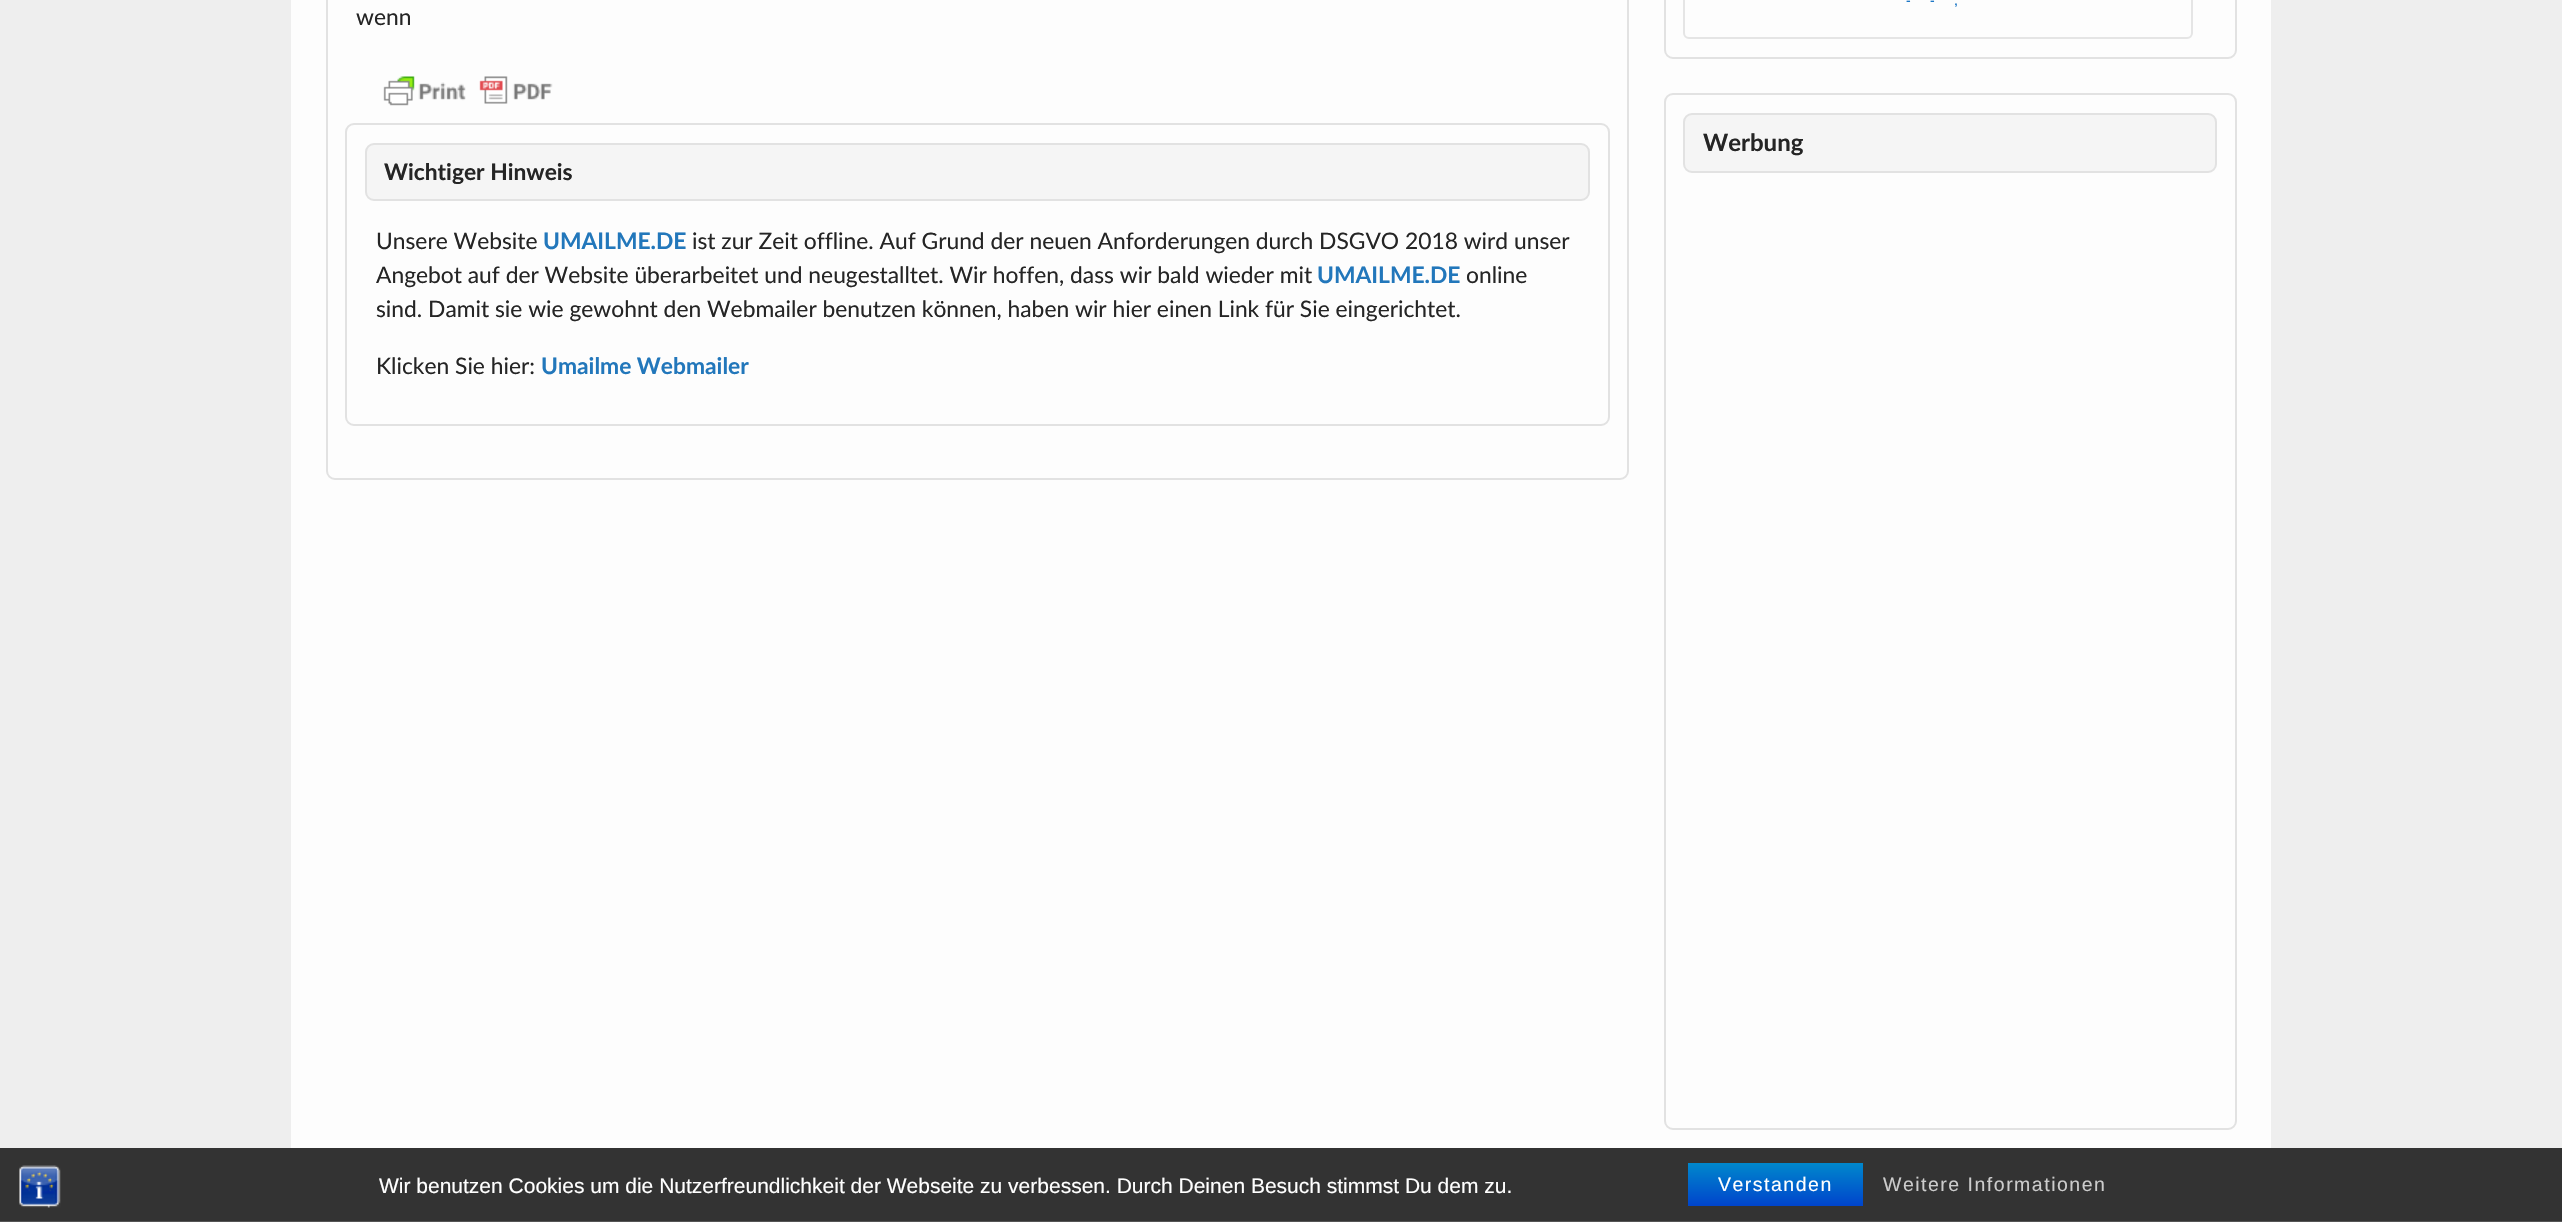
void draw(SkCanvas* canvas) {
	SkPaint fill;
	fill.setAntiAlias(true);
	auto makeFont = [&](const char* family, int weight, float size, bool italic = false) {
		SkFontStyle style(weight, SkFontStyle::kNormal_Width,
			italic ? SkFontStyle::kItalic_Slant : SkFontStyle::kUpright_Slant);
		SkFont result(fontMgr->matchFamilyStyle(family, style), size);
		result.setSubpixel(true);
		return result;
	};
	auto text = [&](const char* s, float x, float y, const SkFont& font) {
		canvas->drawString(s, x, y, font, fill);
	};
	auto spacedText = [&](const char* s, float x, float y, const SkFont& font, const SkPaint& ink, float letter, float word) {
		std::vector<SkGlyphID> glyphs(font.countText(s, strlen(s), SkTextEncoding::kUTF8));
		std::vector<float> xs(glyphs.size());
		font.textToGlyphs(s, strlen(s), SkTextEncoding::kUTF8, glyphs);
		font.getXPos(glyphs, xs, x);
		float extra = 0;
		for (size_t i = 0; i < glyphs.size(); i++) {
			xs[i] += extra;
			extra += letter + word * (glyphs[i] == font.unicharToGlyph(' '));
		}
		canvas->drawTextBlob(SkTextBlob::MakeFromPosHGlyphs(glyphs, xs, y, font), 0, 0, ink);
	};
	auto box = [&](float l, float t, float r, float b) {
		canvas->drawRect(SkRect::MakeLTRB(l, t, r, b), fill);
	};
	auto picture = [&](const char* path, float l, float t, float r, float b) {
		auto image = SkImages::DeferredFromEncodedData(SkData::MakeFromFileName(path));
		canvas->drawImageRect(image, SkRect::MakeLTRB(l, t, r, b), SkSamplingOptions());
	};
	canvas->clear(0xFFEEEEEE);
	fill.setColor(0xFFFDFDFD);
	box(291, 0, 2271, 1148);
	fill.setStyle(SkPaint::kStroke_Style);
	fill.setStrokeWidth(2);
	fill.setColor(0xFFE2E2E2);
	canvas->drawRoundRect(SkRect::MakeLTRB(327, -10, 1628, 479), 8, 8, fill);
	picture("image0.png", 383, 76, 553, 106);
	canvas->drawRoundRect(SkRect::MakeLTRB(346, 124, 1609, 425), 8, 8, fill);
	fill.setStyle(SkPaint::kFill_Style);
	fill.setColor(0xFFF5F5F5);
	canvas->drawRoundRect(SkRect::MakeLTRB(366, 144, 1589, 200), 8, 8, fill);
	fill.setStyle(SkPaint::kStroke_Style);
	fill.setColor(0xFFE2E2E2);
	canvas->drawRoundRect(SkRect::MakeLTRB(366, 144, 1589, 200), 8, 8, fill);
	canvas->drawRoundRect(SkRect::MakeLTRB(1665, -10, 2236, 58), 8, 8, fill);
	fill.setColor(0xFFE5E5E5);
	canvas->drawRoundRect(SkRect::MakeLTRB(1684, -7, 2192, 38), 5, 5, fill);
	fill.setColor(0xFFE2E2E2);
	canvas->drawRoundRect(SkRect::MakeLTRB(1665, 94, 2236, 1129), 8, 8, fill);
	fill.setStyle(SkPaint::kFill_Style);
	fill.setColor(0xFFF5F5F5);
	canvas->drawRoundRect(SkRect::MakeLTRB(1684, 114, 2216, 172), 8, 8, fill);
	fill.setStyle(SkPaint::kStroke_Style);
	fill.setColor(0xFFE2E2E2);
	canvas->drawRoundRect(SkRect::MakeLTRB(1684, 114, 2216, 172), 8, 8, fill);
	fill.setStyle(SkPaint::kFill_Style);
	fill.setColor(0xFF333333);
	box(0, 1148, 2562, 1221);
	fill.setColor(0xFF555555);
	box(0, 1221, 2562, 1222);
	picture("image1.png", 19, 1165, 61, 1208);
	{
		const SkColor colors[] = {0xFF0088CC, 0xFF0044CC};
		const float stops[] = {0, 1};
		const SkPoint ends[] = {{1775, 1163}, {1775, 1206}};
		fill.setShader(SkGradientShader::MakeLinear(ends, colors, stops, 2, SkTileMode::kClamp));
		fill.setAlpha(255);
	}
	box(1688, 1163, 1863, 1206);
	auto font1 = makeFont("Lato", 400, 22.8f);
	fill.setShader(nullptr);
	fill.setColor(0xFF252525);
	text("wenn", 356, 25, font1);
	auto font2 = makeFont("Lato", 700, 22.8f);
	text("Wichtiger Hinweis", 384, 180, font2);
	text("Unsere Website", 376, 249, font1);
	fill.setColor(0xFF2277BB);
	text("UMAILME.DE", 543, 249, font2);
	fill.setColor(0xFF252525);
	text("ist zur Zeit offline. Auf Grund der neuen Anforderungen durch DSGVO 2018 wird unser", 692, 249, font1);
	text("Angebot auf der Website überarbeitet und neugestalltet. Wir hoffen, dass wir bald wieder mit", 376, 283, font1);
	fill.setColor(0xFF2277BB);
	text("UMAILME.DE", 1317, 283, font2);
	fill.setColor(0xFF252525);
	text("online", 1466, 283, font1);
	text("sind. Damit sie wie gewohnt den Webmailer benutzen können, haben wir hier einen Link für Sie eingerichtet.", 376, 317, font1);
	text("Klicken Sie hier:", 376, 374, font1);
	fill.setColor(0xFF2277BB);
	text("Umailme Webmailer", 541, 374, font2);
	auto font3 = makeFont("Liberation Sans", 400, 14);
	fill.setColor(0xFF0066BF);
	spacedText("-", 1906, 5, font3, fill, 1.5f, 0);
	spacedText("-", 1930, 5, font3, fill, 1.5f, 0);
	spacedText(",", 1954, 5, font3, fill, 1.5f, 0);
	auto font4 = makeFont("Lato", 700, 24);
	fill.setColor(0xFF252525);
	text("Werbung", 1703, 151, font4);
	auto font5 = makeFont("Liberation Sans", 400, 21);
	fill.setColor(0xFFFFFFFF);
	text("Wir benutzen Cookies um die Nutzerfreundlichkeit der Webseite zu verbessen. Durch Deinen Besuch stimmst Du dem zu.", 379, 1193, font5);
	auto font6 = makeFont("Liberation Sans", 400, 19.5f);
	spacedText("Verstanden", 1718, 1191, font6, fill, 1.5f, 0);
	fill.setColor(0xFFCCCCCC);
	spacedText("Weitere Informationen", 1883, 1191, font6, fill, 1.5f, 0);
}
